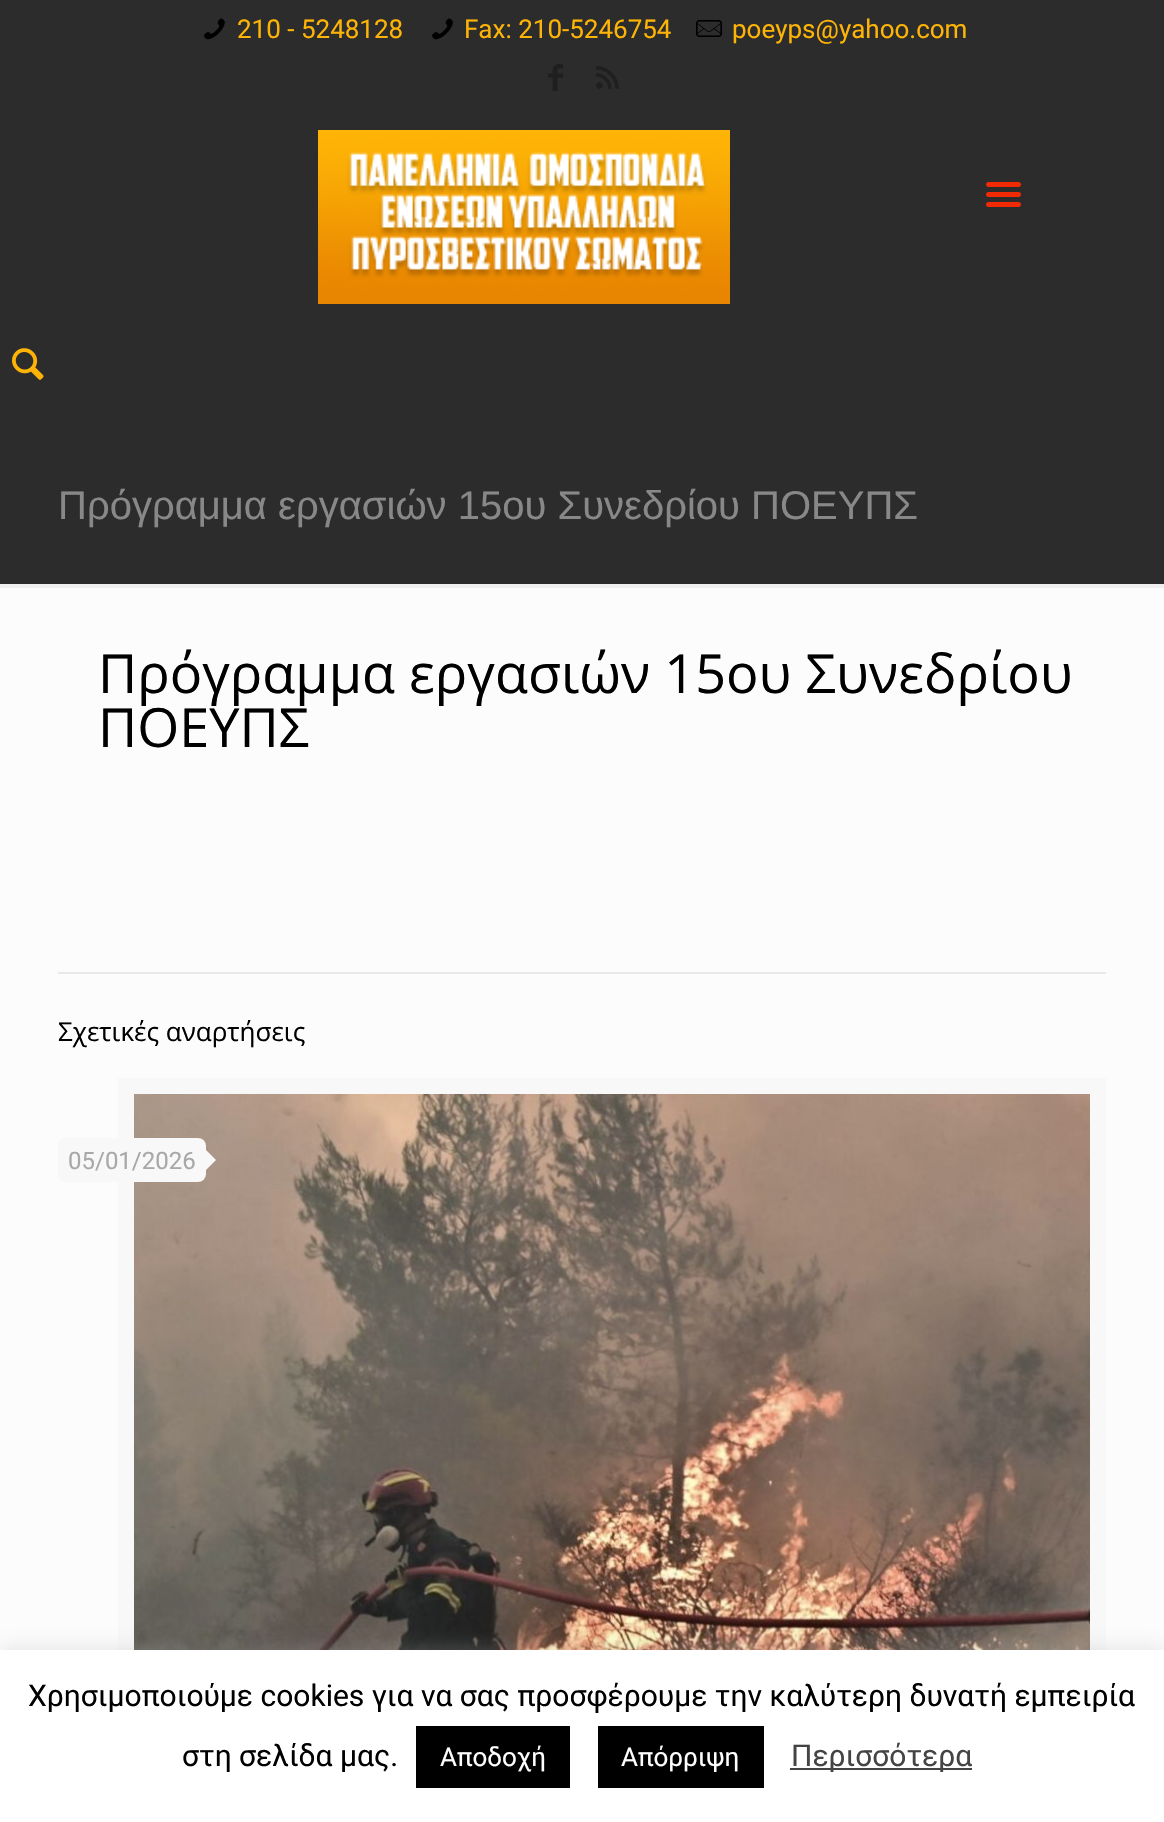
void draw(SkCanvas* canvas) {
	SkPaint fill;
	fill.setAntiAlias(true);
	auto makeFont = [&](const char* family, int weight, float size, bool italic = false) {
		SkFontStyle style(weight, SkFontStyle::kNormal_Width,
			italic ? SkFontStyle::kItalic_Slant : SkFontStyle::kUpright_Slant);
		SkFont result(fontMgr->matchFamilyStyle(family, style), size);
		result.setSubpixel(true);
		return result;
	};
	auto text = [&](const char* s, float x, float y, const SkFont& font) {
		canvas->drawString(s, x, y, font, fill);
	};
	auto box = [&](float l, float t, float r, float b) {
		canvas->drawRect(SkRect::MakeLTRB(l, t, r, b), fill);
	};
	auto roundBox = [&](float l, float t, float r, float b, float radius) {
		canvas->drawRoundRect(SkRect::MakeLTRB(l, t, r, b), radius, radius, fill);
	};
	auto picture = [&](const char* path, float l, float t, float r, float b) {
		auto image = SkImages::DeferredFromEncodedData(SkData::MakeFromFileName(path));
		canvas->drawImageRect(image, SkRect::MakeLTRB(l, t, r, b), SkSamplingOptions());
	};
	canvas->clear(0xFFFCFCFC);
	fill.setColor(0xFF2C2C2C);
	box(0, 0, 1164, 584);
	picture("image0.png", 204, 18, 225, 40);
	picture("image0.png", 432, 18, 453, 40);
	picture("image1.png", 696, 20, 722, 37);
	picture("image2.png", 548, 64, 563, 91);
	picture("image3.png", 596, 66, 619, 89);
	picture("image4.png", 318, 130, 730, 304);
	picture("image5.png", 986, 182, 1021, 207);
	picture("image6.png", 12, 348, 44, 380);
	fill.setColor(0xFFEFEFEF);
	box(0, 584, 1164, 588);
	fill.setColor(0xFFE8E8E8);
	box(58, 972, 1106, 974);
	fill.setStyle(SkPaint::kStroke_Style);
	fill.setStrokeWidth(16);
	fill.setColor(0xFFF8F8F8);
	canvas->drawRect(SkRect::MakeLTRB(126, 1086, 1098, 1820), fill);
	picture("image7.png", 134, 1094, 1090, 1650);
	fill.setStyle(SkPaint::kFill_Style);
	roundBox(58, 1138, 206, 1182, 8);
	canvas->drawPath(SkPathBuilder().moveTo(206, 1170).lineTo(206, 1150).lineTo(216, 1160).close().detach(), fill);
	fill.setColor(0x4DACABAB);
	fill.setMaskFilter(SkMaskFilter::MakeBlur(kNormal_SkBlurStyle, 10));
	canvas->drawRect(SkRect::MakeLTRB(0, 1648, 1164, 1820), fill);
	fill.setMaskFilter(nullptr);
	fill.setColor(0xFFFFFFFF);
	box(0, 1650, 1164, 1822);
	fill.setColor(0xFF000000);
	box(416, 1726, 570, 1788);
	box(598, 1726, 764, 1788);
	fill.setColor(0xFF444444);
	box(790, 1768, 972, 1770);
	auto font1 = makeFont("Roboto", 400, 26);
	fill.setColor(0xFFFEB406);
	text("210 - 5248128", 237, 38, font1);
	text("Fax: 210-5246754", 464, 38, font1);
	text("poeyps@yahoo.com", 732, 38, font1);
	auto font2 = makeFont("Liberation Sans", 400, 40);
	fill.setColor(0xFF888888);
	text("Πρόγραμμα εργασιών 15ου Συνεδρίου ΠΟΕΥΠΣ", 58, 519, font2);
	auto font3 = makeFont("Open Sans", 400, 54);
	fill.setColor(0xFF000000);
	text("Πρόγραμμα εργασιών 15ου Συνεδρίου", 98, 693, font3);
	text("ΠΟΕΥΠΣ", 98, 747, font3);
	auto font4 = makeFont("Open Sans", 400, 26);
	text("Σχετικές αναρτήσεις", 58, 1041, font4);
	auto font5 = makeFont("Roboto", 400, 24);
	fill.setColor(0xFFA8A8A8);
	text("05/01/2026", 68, 1169, font5);
	auto font6 = makeFont("Roboto", 400, 30);
	fill.setColor(0xFF000000);
	text("Χρησιμοποιούμε cookies για να σας προσφέρουμε την καλύτερη δυνατή εμπειρία", 28, 1706, font6);
	text("στη σελίδα μας.", 182, 1766, font6);
	fill.setColor(0xFFFFFFFF);
	text("Αποδοχή", 440, 1766, font1);
	text("Απόρριψη", 621, 1766, font1);
	fill.setColor(0xFF444444);
	text("Περισσότερα", 791, 1766, font6);
}
